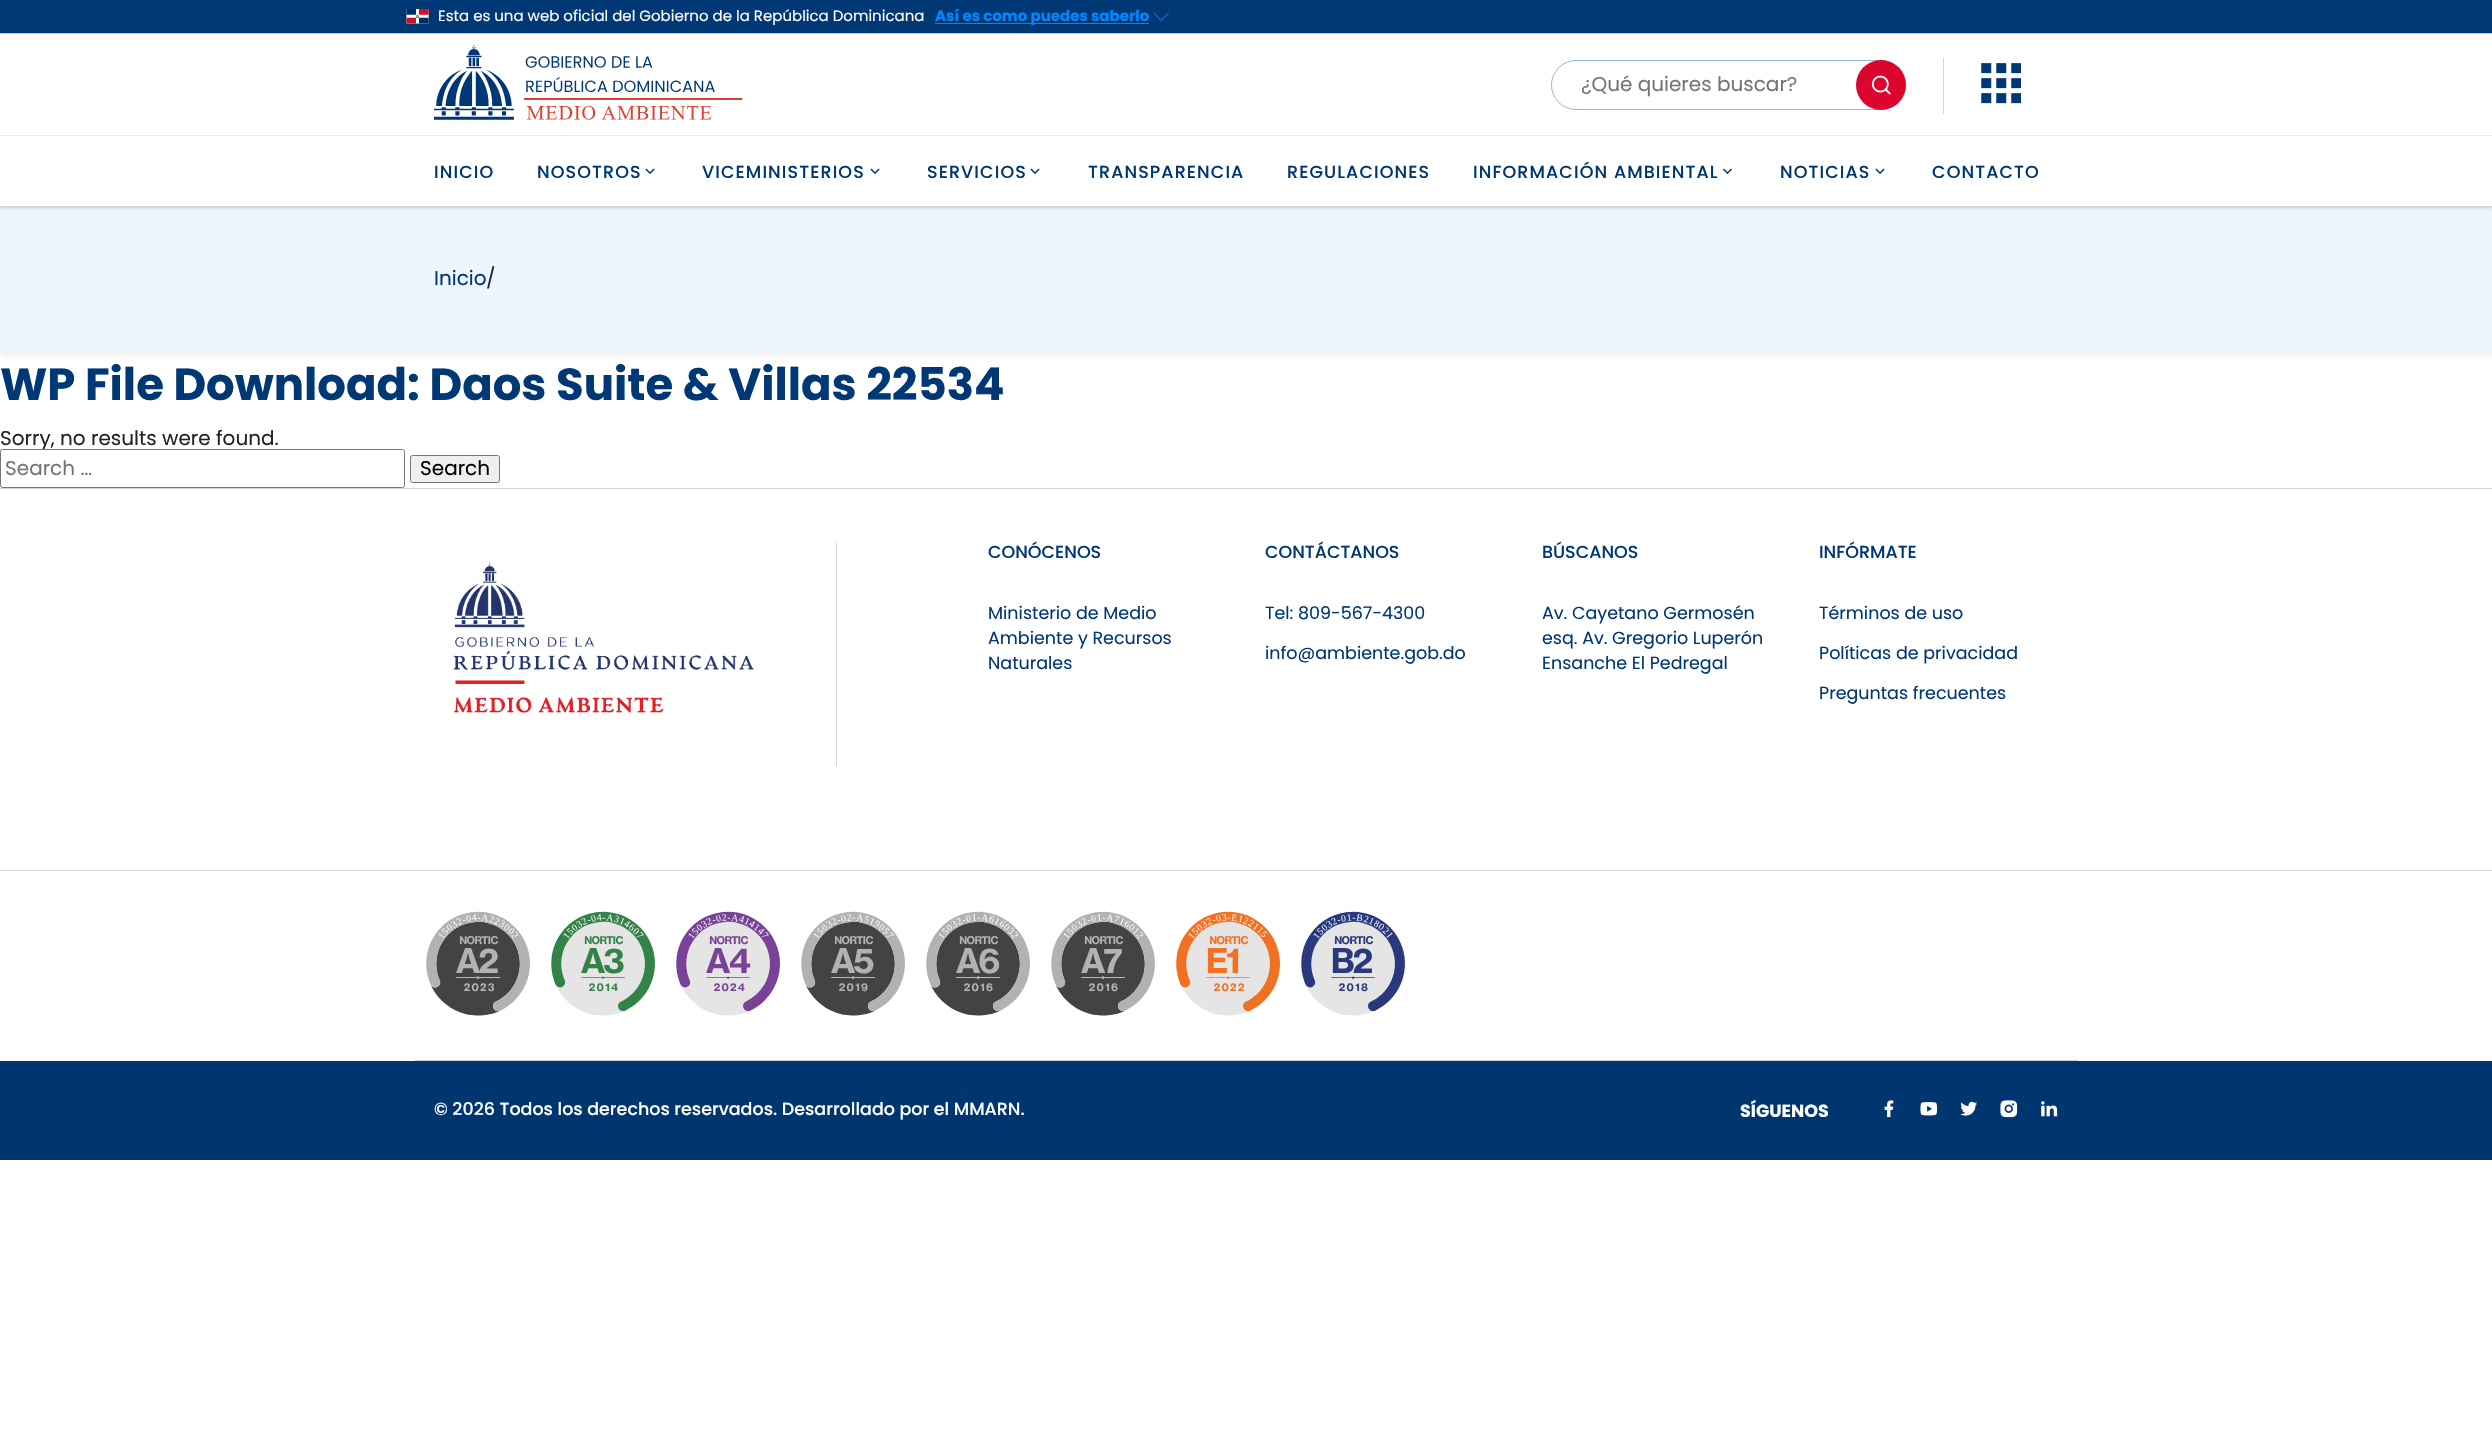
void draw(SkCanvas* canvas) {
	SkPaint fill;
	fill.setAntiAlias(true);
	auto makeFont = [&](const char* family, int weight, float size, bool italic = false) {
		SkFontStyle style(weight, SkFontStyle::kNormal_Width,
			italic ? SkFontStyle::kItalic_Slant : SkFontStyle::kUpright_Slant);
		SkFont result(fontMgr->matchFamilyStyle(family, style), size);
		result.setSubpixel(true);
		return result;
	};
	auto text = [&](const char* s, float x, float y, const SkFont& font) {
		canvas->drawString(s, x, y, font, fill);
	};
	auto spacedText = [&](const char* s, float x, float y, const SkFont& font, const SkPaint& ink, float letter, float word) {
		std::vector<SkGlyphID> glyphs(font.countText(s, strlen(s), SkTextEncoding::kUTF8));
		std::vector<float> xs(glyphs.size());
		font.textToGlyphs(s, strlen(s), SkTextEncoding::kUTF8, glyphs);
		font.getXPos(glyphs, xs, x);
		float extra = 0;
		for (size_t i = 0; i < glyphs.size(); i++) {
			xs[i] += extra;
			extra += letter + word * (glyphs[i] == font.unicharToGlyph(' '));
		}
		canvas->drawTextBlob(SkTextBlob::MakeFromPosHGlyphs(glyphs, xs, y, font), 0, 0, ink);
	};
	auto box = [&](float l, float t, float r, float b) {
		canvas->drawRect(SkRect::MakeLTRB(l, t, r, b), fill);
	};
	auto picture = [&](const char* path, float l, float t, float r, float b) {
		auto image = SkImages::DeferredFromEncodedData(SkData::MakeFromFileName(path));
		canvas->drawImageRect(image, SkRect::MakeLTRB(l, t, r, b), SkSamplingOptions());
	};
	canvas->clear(0xFFFFFFFF);
	fill.setColor(0xFF003876);
	box(0, 0, 2492, 33);
	fill.setColor(0xFFCCCCCC);
	box(0, 33, 2492, 34);
	picture("image0.png", 406, 9, 429, 24);
	fill.setColor(0xFF0087FF);
	box(935, 23, 1149, 24);
	fill.setStyle(SkPaint::kStroke_Style);
	fill.setStrokeWidth(1);
	fill.setStrokeCap(SkPaint::kRound_Cap);
	fill.setStrokeJoin(SkPaint::kRound_Join);
	canvas->drawPath(SkPathBuilder().moveTo(1168.5f, 13).lineTo(1161, 20.5f).lineTo(1154, 13).detach(), fill);
	fill.setStyle(SkPaint::kFill_Style);
	fill.setColor(0x12000000);
	fill.setMaskFilter(SkMaskFilter::MakeBlur(kNormal_SkBlurStyle, 3));
	canvas->drawRect(SkRect::MakeLTRB(0, 38, 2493, 355), fill);
	fill.setMaskFilter(nullptr);
	fill.setColor(0xFFEEF5FF);
	box(0, 206, 2492, 351);
	fill.setColor(0x0F000000);
	fill.setMaskFilter(SkMaskFilter::MakeBlur(kNormal_SkBlurStyle, 1));
	canvas->drawRect(SkRect::MakeLTRB(0, 138, 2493, 208), fill);
	fill.setMaskFilter(nullptr);
	fill.setColor(0x1A000000);
	fill.setMaskFilter(SkMaskFilter::MakeBlur(kNormal_SkBlurStyle, 2));
	canvas->drawRect(SkRect::MakeLTRB(0, 138, 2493, 208), fill);
	fill.setMaskFilter(nullptr);
	fill.setColor(0xFFFFFFFF);
	box(0, 35, 2492, 135);
	fill.setColor(0xFFEBEBEB);
	box(0, 135, 2492, 136);
	fill.setColor(0x6EFFFFFF);
	box(1008, 33, 1009, 34);
	picture("image1.png", 434, 45, 743, 120);
	fill.setStyle(SkPaint::kStroke_Style);
	fill.setStrokeCap(SkPaint::kButt_Cap);
	fill.setStrokeJoin(SkPaint::kMiter_Join);
	fill.setColor(0xFF98B4D4);
	canvas->drawRoundRect(SkRect::MakeLTRB(1551.5f, 60.5f, 1905.5f, 109.5f), 24.5f, 24.5f, fill);
	fill.setStyle(SkPaint::kFill_Style);
	fill.setColor(0xFFDC052D);
	canvas->drawCircle(1881, 85, 25, fill);
	picture("image2.png", 1871, 75, 1891, 95);
	fill.setColor(0xFFD3D3D3);
	box(1943, 58, 1944, 114);
	picture("image3.png", 1981, 63, 2021, 104);
	fill.setColor(0xFFFFFFFF);
	box(0, 136, 2492, 206);
	picture("image4.png", 645, 168, 655, 174);
	picture("image4.png", 870, 168, 880, 174);
	picture("image4.png", 1030, 168, 1040, 174);
	picture("image5.png", 1723, 168, 1732, 175);
	picture("image4.png", 1875, 168, 1885, 174);
	fill.setColor(0xFFEFEFEF);
	canvas->drawRoundRect(SkRect::MakeLTRB(410.5f, 455.5f, 499.5f, 482.5f), 2, 2, fill);
	fill.setStyle(SkPaint::kStroke_Style);
	fill.setColor(0xFF767676);
	canvas->drawRoundRect(SkRect::MakeLTRB(410.5f, 455.5f, 499.5f, 482.5f), 2, 2, fill);
	fill.setStyle(SkPaint::kFill_Style);
	fill.setColor(0xFFD3D3D3);
	box(0, 488, 2492, 489);
	box(0, 870, 2492, 871);
	picture("image6.png", 453, 562, 754, 713);
	box(836, 543, 837, 766);
	fill.setColor(0xFFCCCCCC);
	box(415, 1060, 2078, 1061);
	picture("image7.png", 426, 911, 530, 1016);
	picture("image8.png", 551, 911, 655, 1016);
	picture("image9.png", 676, 911, 780, 1016);
	picture("image10.png", 801, 911, 905, 1016);
	picture("image11.png", 926, 911, 1030, 1016);
	picture("image12.png", 1051, 911, 1155, 1016);
	picture("image13.png", 1176, 911, 1280, 1016);
	picture("image14.png", 1301, 911, 1405, 1016);
	fill.setColor(0xFF003670);
	box(0, 1061, 2492, 1160);
	picture("image15.png", 1884, 1100, 1894, 1118);
	picture("image16.png", 1920, 1102, 1938, 1116);
	picture("image17.png", 1960, 1101, 1977, 1116);
	picture("image18.png", 2000, 1100, 2018, 1118);
	picture("image19.png", 2041, 1101, 2058, 1117);
	auto font1 = makeFont("Poppins", 400, 15);
	fill.setColor(0xFFFFFFFF);
	text("Esta es una web oficial del Gobierno de la República Dominicana", 438, 21, font1);
	auto font2 = makeFont("Poppins", 700, 15);
	fill.setColor(0xFF0087FF);
	text("Así es como puedes saberlo", 935, 21, font2);
	auto font3 = makeFont("Poppins", 400, 20);
	fill.setColor(0xFF757575);
	text("¿Qué quieres buscar?", 1581, 91, font3);
	auto font4 = makeFont("Poppins", 500, 17.5f);
	fill.setColor(0xFF003670);
	spacedText("INICIO", 434, 178, font4, fill, 1.1f, 0);
	spacedText("NOSOTROS", 537, 178, font4, fill, 1.1f, 0);
	spacedText("VICEMINISTERIOS", 702, 178, font4, fill, 1.1f, 0);
	spacedText("SERVICIOS", 927, 178, font4, fill, 1.1f, 0);
	spacedText("TRANSPARENCIA", 1088, 178, font4, fill, 1.1f, 0);
	spacedText("REGULACIONES", 1287, 178, font4, fill, 1.1f, 0);
	spacedText("INFORMACIÓN AMBIENTAL", 1473, 178, font4, fill, 1.1f, 0);
	spacedText("NOTICIAS", 1780, 178, font4, fill, 1.1f, 0);
	spacedText("CONTACTO", 1932, 178, font4, fill, 1.1f, 0);
	fill.setColor(0xFF003876);
	text("Inicio", 434, 285, font3);
	fill.setColor(0xFF212529);
	text("/", 486, 285, font3);
	auto font5 = makeFont("Poppins", 700, 45);
	fill.setColor(0xFF003876);
	text("WP File Download: Daos Suite & Villas 22534", 0, 400, font5);
	fill.setColor(0xFF212529);
	text("Sorry, no results were found.", 0, 445, font3);
	fill.setColor(0xFFFFFFFF);
	canvas->drawRoundRect(SkRect::MakeLTRB(0.5f, 449.5f, 404.5f, 487.5f), 2, 2, fill);
	fill.setStyle(SkPaint::kStroke_Style);
	fill.setColor(0xFF767676);
	canvas->drawRoundRect(SkRect::MakeLTRB(0.5f, 449.5f, 404.5f, 487.5f), 2, 2, fill);
	fill.setStyle(SkPaint::kFill_Style);
	fill.setColor(0xFF757575);
	text("Search …", 5, 475, font3);
	fill.setColor(0xFF000000);
	text("Search", 420, 475, font3);
	fill.setColor(0xFF003876);
	text("CONÓCENOS", 988, 558, font4);
	auto font6 = makeFont("Poppins", 400, 17.5f);
	text("Ministerio de Medio", 988, 619, font6);
	text("Ambiente y Recursos", 988, 644, font6);
	text("Naturales", 988, 669, font6);
	text("CONTÁCTANOS", 1265, 558, font4);
	text("Tel: 809-567-4300", 1265, 619, font6);
	text("info@ambiente.gob.do", 1265, 659, font6);
	text("BÚSCANOS", 1542, 558, font4);
	text("Av. Cayetano Germosén", 1542, 619, font6);
	text("esq. Av. Gregorio Luperón", 1542, 644, font6);
	text("Ensanche El Pedregal", 1542, 669, font6);
	text("INFÓRMATE", 1819, 558, font4);
	text("Términos de uso", 1819, 619, font6);
	text("Políticas de privacidad", 1819, 659, font6);
	text("Preguntas frecuentes", 1819, 699, font6);
	fill.setColor(0xFFFFFFFF);
	text("© 2026 Todos los derechos reservados. Desarrollado por el MMARN.", 434, 1115, font4);
	auto font7 = makeFont("Poppins", 700, 17.5f);
	text("SÍGUENOS", 1740, 1117, font7);
}
